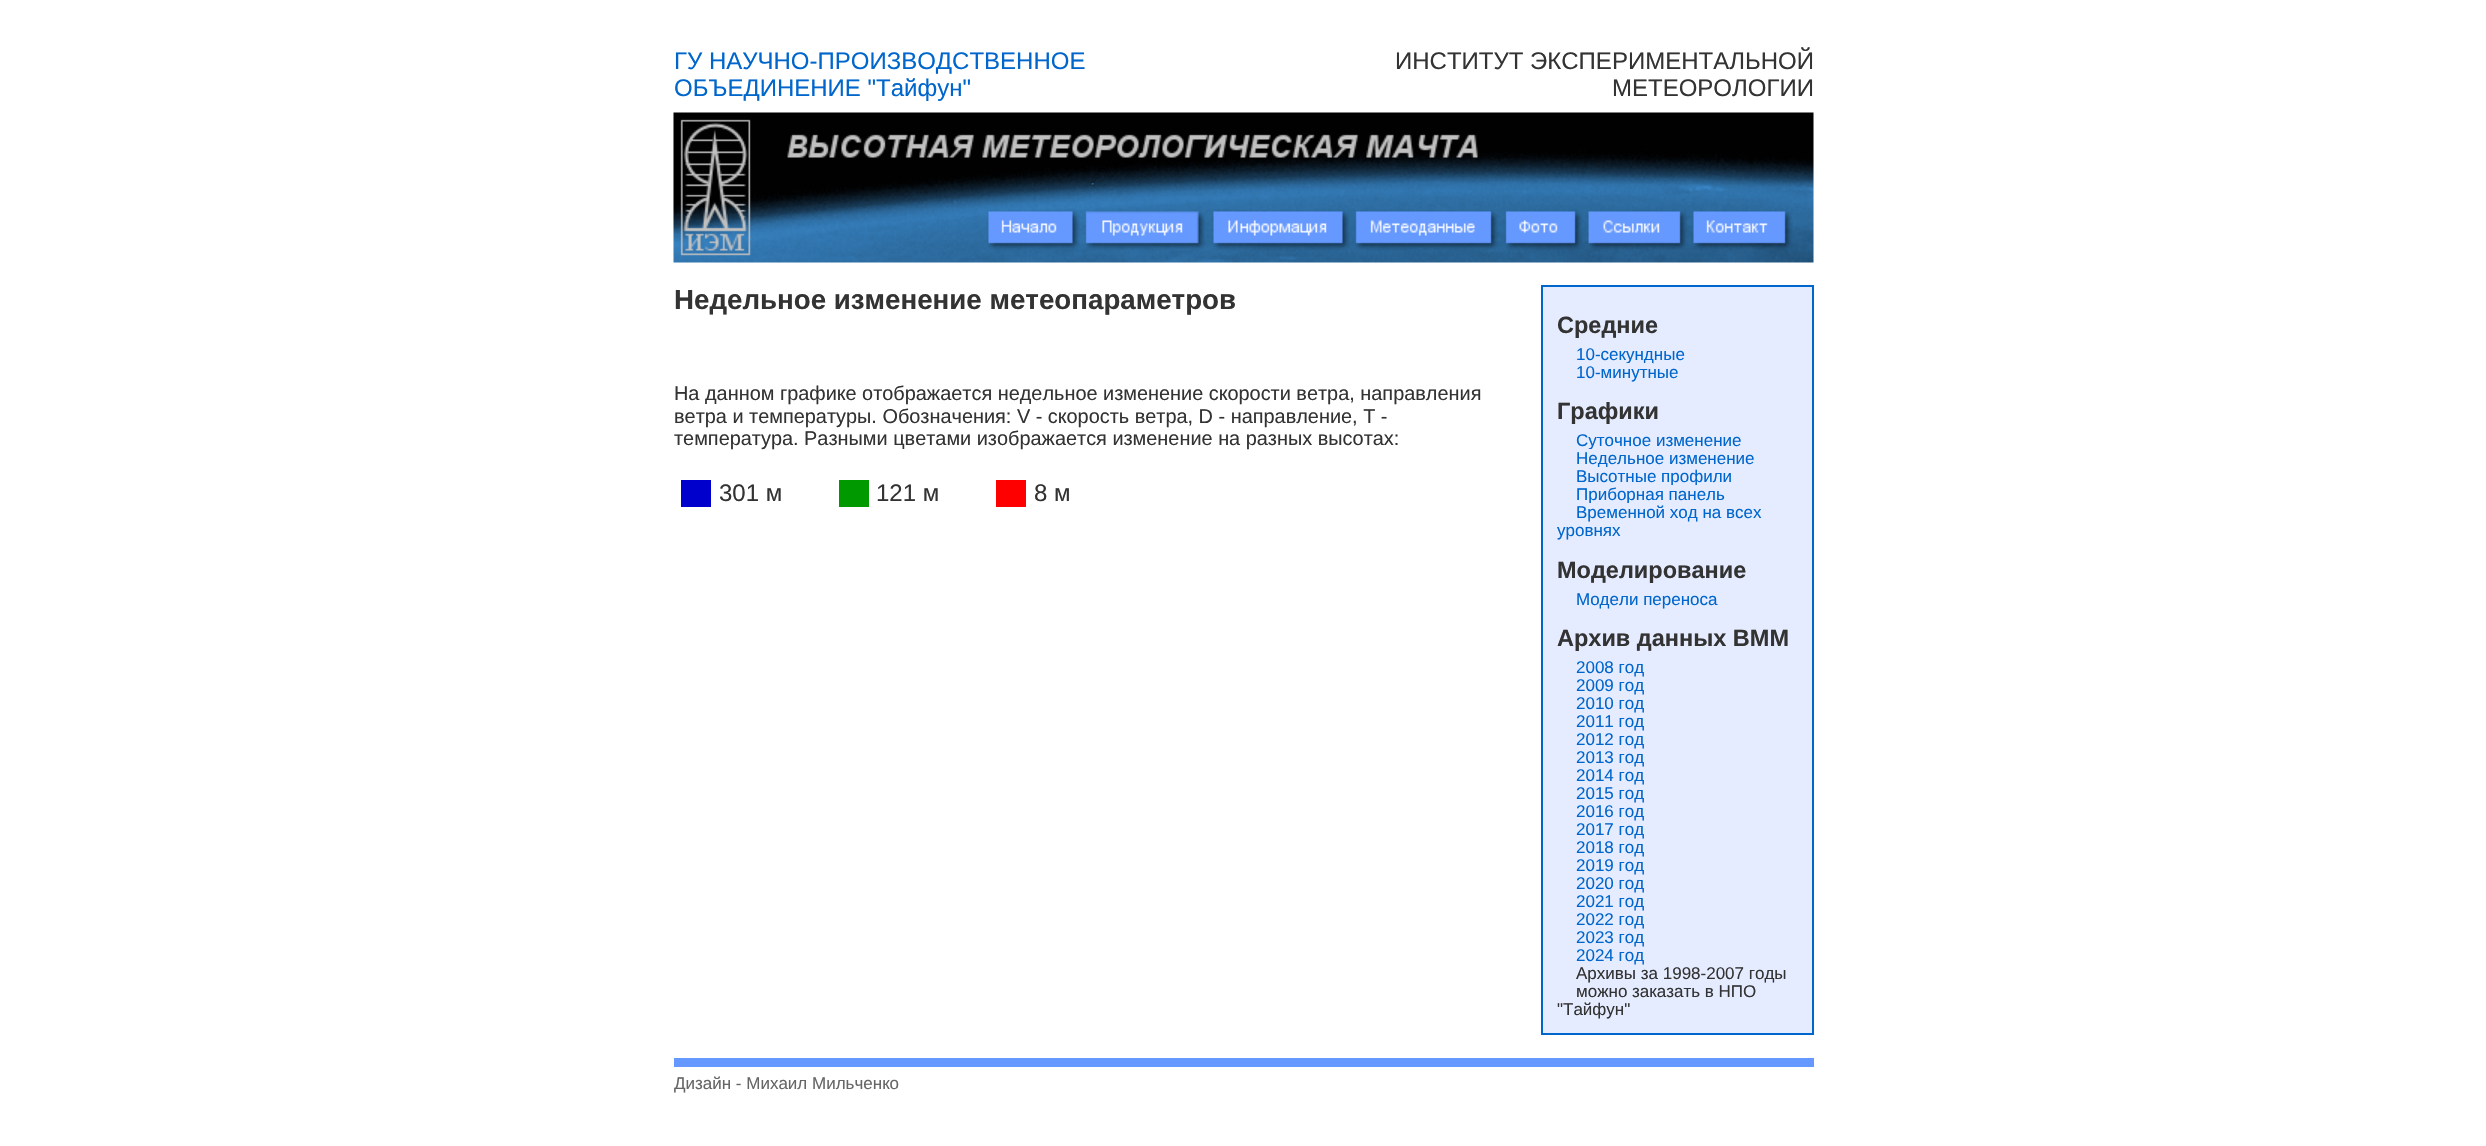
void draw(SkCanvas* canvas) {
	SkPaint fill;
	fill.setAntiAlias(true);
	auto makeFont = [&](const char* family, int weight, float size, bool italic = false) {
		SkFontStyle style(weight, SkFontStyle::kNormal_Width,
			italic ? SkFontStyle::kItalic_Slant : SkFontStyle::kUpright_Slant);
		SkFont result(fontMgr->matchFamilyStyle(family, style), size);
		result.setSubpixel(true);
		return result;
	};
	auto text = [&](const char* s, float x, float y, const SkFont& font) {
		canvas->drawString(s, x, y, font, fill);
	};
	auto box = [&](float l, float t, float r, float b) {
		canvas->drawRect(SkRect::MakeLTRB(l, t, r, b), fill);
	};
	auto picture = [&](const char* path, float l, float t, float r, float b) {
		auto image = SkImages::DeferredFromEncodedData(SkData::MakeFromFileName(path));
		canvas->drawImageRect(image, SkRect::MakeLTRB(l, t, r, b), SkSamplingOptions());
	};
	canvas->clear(0xFFFFFFFF);
	picture("image0.png", 673, 112, 1814, 263);
	fill.setColor(0xFF0000CC);
	box(681, 480, 711, 507);
	fill.setColor(0xFF009900);
	box(839, 480, 869, 507);
	fill.setColor(0xFFFF0000);
	box(996, 480, 1026, 507);
	fill.setColor(0xFFE6ECFF);
	canvas->drawRect(SkRect::MakeLTRB(1542, 286, 1813, 1034), fill);
	fill.setStyle(SkPaint::kStroke_Style);
	fill.setStrokeWidth(2);
	fill.setColor(0xFF0066CC);
	canvas->drawRect(SkRect::MakeLTRB(1542, 286, 1813, 1034), fill);
	fill.setStyle(SkPaint::kFill_Style);
	fill.setColor(0xFF6699FF);
	box(674, 1058, 1814, 1067);
	auto font1 = makeFont("Liberation Sans", 400, 24);
	fill.setColor(0xFF0066CC);
	text("ГУ НАУЧНО-ПРОИЗВОДСТВЕННОЕ", 674, 69, font1);
	text("ОБЪЕДИНЕНИЕ \"Тайфун\"", 674, 96, font1);
	fill.setColor(0xFF333333);
	text("ИНСТИТУТ ЭКСПЕРИМЕНТАЛЬНОЙ", 1395, 69, font1);
	text("МЕТЕОРОЛОГИИ", 1612, 96, font1);
	auto font2 = makeFont("Liberation Sans", 700, 27.7f);
	text("Недельное изменение метеопараметров", 674, 309, font2);
	auto font3 = makeFont("Liberation Sans", 400, 19.9f);
	text("На данном графике отображается недельное изменение скорости ветра, направления", 674, 400, font3);
	text("ветра и температуры. Обозначения: V - скорость ветра, D - направление, T -", 674, 423, font3);
	text("температура. Разными цветами изображается изменение на разных высотах:", 674, 445, font3);
	text("301 м", 719, 501, font1);
	text("121 м", 876, 501, font1);
	text("8 м", 1034, 501, font1);
	auto font4 = makeFont("Liberation Sans", 700, 23.5f);
	text("Средние", 1557, 333, font4);
	auto font5 = makeFont("Liberation Sans", 400, 17);
	fill.setColor(0xFF0066CC);
	text("10-секундные", 1576, 360, font5);
	text("10-минутные", 1576, 378, font5);
	fill.setColor(0xFFE6ECFF);
	box(1626, 363, 1653, 364);
	fill.setColor(0xFF333333);
	text("Графики", 1557, 419, font4);
	fill.setColor(0xFF0066CC);
	text("Суточное изменение", 1576, 446, font5);
	text("Недельное изменение", 1576, 464, font5);
	fill.setColor(0xFFE6ECFF);
	box(1588, 449, 1592, 450);
	fill.setColor(0xFF0066CC);
	text("Высотные профили", 1576, 482, font5);
	fill.setColor(0xFFE6ECFF);
	box(1597, 467, 1608, 468);
	fill.setColor(0xFF0066CC);
	text("Приборная панель", 1576, 500, font5);
	fill.setColor(0xFFE6ECFF);
	box(1670, 485, 1697, 486);
	fill.setColor(0xFF0066CC);
	text("Временной ход на всех", 1576, 518, font5);
	fill.setColor(0xFFE6ECFF);
	box(1589, 503, 1629, 504);
	fill.setColor(0xFF0066CC);
	text("уровнях", 1557, 536, font5);
	fill.setColor(0xFF333333);
	text("Моделирование", 1557, 578, font4);
	fill.setColor(0xFF0066CC);
	text("Модели переноса", 1576, 605, font5);
	fill.setColor(0xFF333333);
	text("Архив данных ВММ", 1557, 646, font4);
	fill.setColor(0xFF0066CC);
	text("2008 год", 1576, 673, font5);
	text("2009 год", 1576, 691, font5);
	text("2010 год", 1576, 709, font5);
	text("2011 год", 1576, 727, font5);
	text("2012 год", 1576, 745, font5);
	text("2013 год", 1576, 763, font5);
	text("2014 год", 1576, 781, font5);
	text("2015 год", 1576, 799, font5);
	text("2016 год", 1576, 817, font5);
	text("2017 год", 1576, 835, font5);
	text("2018 год", 1576, 853, font5);
	text("2019 год", 1576, 871, font5);
	text("2020 год", 1576, 889, font5);
	text("2021 год", 1576, 907, font5);
	text("2022 год", 1576, 925, font5);
	text("2023 год", 1576, 943, font5);
	text("2024 год", 1576, 961, font5);
	fill.setColor(0xFF333333);
	text("Архивы за 1998-2007 годы", 1576, 979, font5);
	text("можно заказать в НПО", 1576, 997, font5);
	text("\"Тайфун\"", 1557, 1015, font5);
	fill.setColor(0xFF666666);
	text("Дизайн - Михаил Мильченко", 674, 1089, font5);
}
